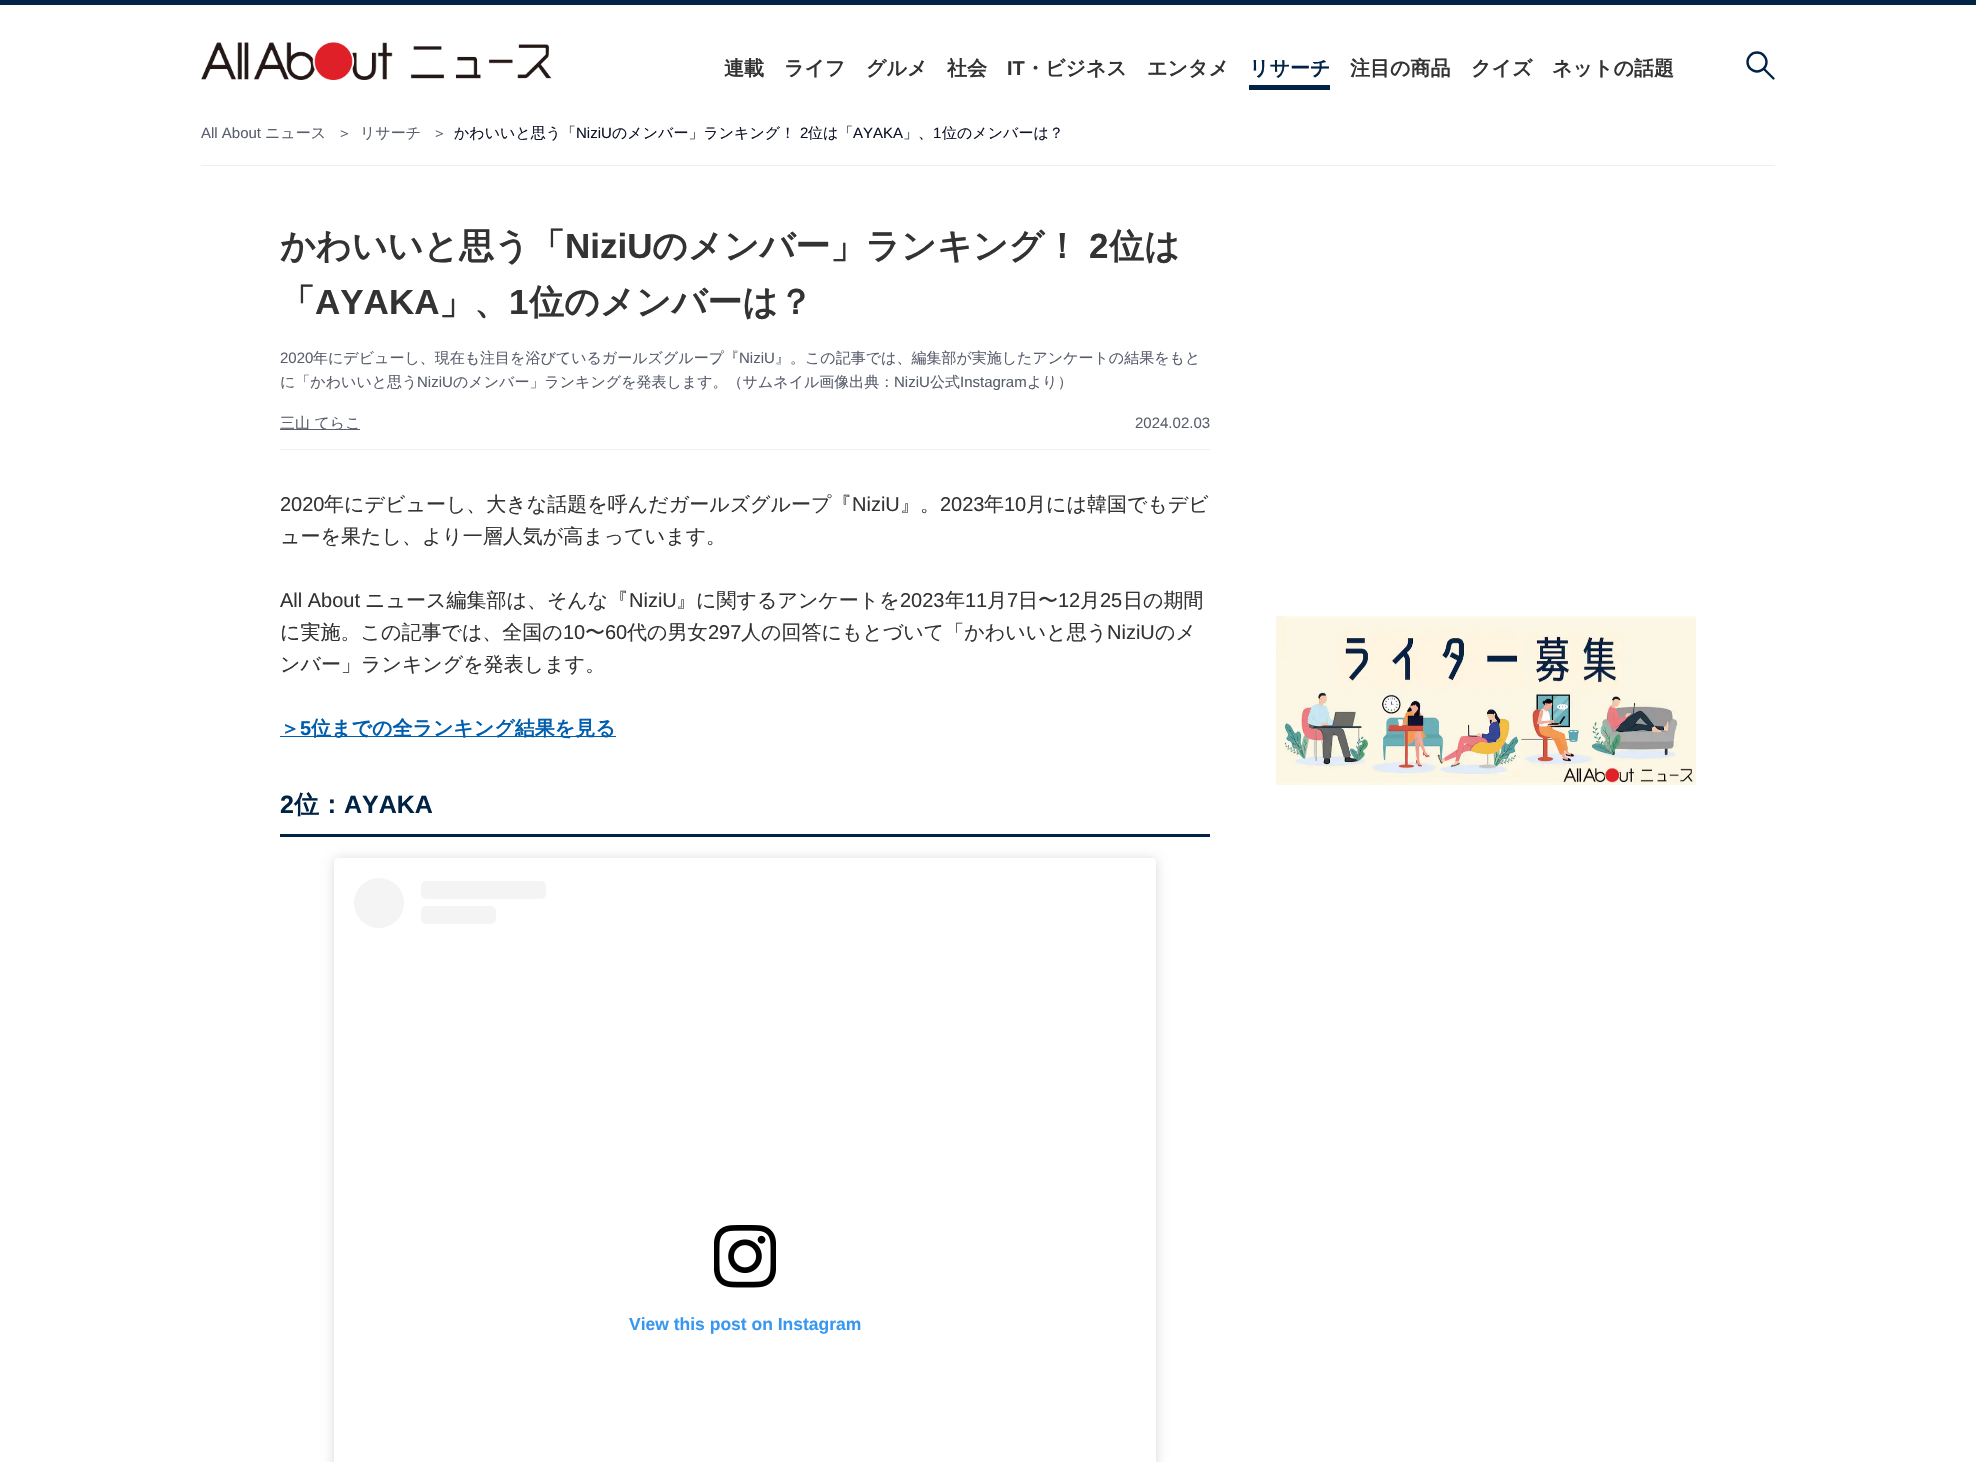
void draw(SkCanvas* canvas) {
	SkPaint fill;
	fill.setAntiAlias(true);
	auto makeFont = [&](const char* family, int weight, float size, bool italic = false) {
		SkFontStyle style(weight, SkFontStyle::kNormal_Width,
			italic ? SkFontStyle::kItalic_Slant : SkFontStyle::kUpright_Slant);
		SkFont result(fontMgr->matchFamilyStyle(family, style), size);
		result.setSubpixel(true);
		return result;
	};
	auto text = [&](const char* s, float x, float y, const SkFont& font) {
		canvas->drawString(s, x, y, font, fill);
	};
	auto box = [&](float l, float t, float r, float b) {
		canvas->drawRect(SkRect::MakeLTRB(l, t, r, b), fill);
	};
	auto roundBox = [&](float l, float t, float r, float b, float radius) {
		canvas->drawRoundRect(SkRect::MakeLTRB(l, t, r, b), radius, radius, fill);
	};
	auto picture = [&](const char* path, float l, float t, float r, float b) {
		auto image = SkImages::DeferredFromEncodedData(SkData::MakeFromFileName(path));
		canvas->drawImageRect(image, SkRect::MakeLTRB(l, t, r, b), SkSamplingOptions());
	};
	canvas->clear(0xFFFFFFFF);
	fill.setColor(0xFF002346);
	box(0, 0, 1976, 5);
	picture("image0.png", 201, 42, 552, 80);
	box(1249, 85, 1330, 90);
	fill.setStyle(SkPaint::kStroke_Style);
	fill.setStrokeWidth(2.4f);
	canvas->drawCircle(1757, 62, 9.5f, fill);
	fill.setStrokeCap(SkPaint::kRound_Cap);
	fill.setStrokeJoin(SkPaint::kRound_Join);
	canvas->drawPath(SkPathBuilder().moveTo(1773.5f, 78.5f).lineTo(1764.5f, 69.5f).detach(), fill);
	fill.setStyle(SkPaint::kFill_Style);
	fill.setColor(0xFFEBF0F5);
	box(201, 165, 1775, 166);
	box(280, 449, 1210, 450);
	fill.setColor(0xFF5A5F6E);
	box(280, 429, 360, 430);
	fill.setColor(0xFF005EAD);
	box(280, 736, 616, 737);
	fill.setColor(0xFF002346);
	box(280, 834, 1210, 837);
	canvas->save();
	canvas->clipPath(SkPathBuilder(SkPathFillType::kEvenOdd).moveTo(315, 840).lineTo(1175, 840).lineTo(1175, 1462).lineTo(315, 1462).close().moveTo(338, 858).lineTo(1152, 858).cubicTo(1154, 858, 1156, 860, 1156, 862).lineTo(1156, 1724).cubicTo(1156, 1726, 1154, 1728, 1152, 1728).lineTo(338, 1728).cubicTo(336, 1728, 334, 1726, 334, 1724).lineTo(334, 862).cubicTo(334, 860, 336, 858, 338, 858).close().detach(), true);
	fill.setColor(0x26000000);
	fill.setMaskFilter(SkMaskFilter::MakeBlur(kNormal_SkBlurStyle, 6));
	canvas->drawRoundRect(SkRect::MakeLTRB(334, 859, 1156, 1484), 4, 4, fill);
	fill.setMaskFilter(nullptr);
	canvas->restore();
	fill.setColor(0xFFF4F4F4);
	canvas->drawCircle(379, 903, 25, fill);
	roundBox(421, 881, 546, 899, 5);
	roundBox(421, 906, 496, 924, 5);
	picture("image1.png", 714, 1225, 776, 1288);
	picture("image2.png", 1276, 616, 1696, 785);
	auto font1 = makeFont("WenQuanYi Zen Hei", 700, 20);
	fill.setColor(0xFF333333);
	text("連載", 724, 75, font1);
	text("ライフ", 784, 75, font1);
	text("グルメ", 866, 75, font1);
	text("社会", 947, 75, font1);
	auto font2 = makeFont("Liberation Sans", 700, 20);
	text("IT", 1007, 75, font2);
	text("・ビジネス", 1025, 75, font1);
	text("エンタメ", 1147, 75, font1);
	fill.setColor(0xFF002346);
	text("リサーチ", 1249, 75, font1);
	fill.setColor(0xFF333333);
	text("注目の商品", 1350, 75, font1);
	text("クイズ", 1471, 75, font1);
	text("ネットの話題", 1552, 75, font1);
	auto font3 = makeFont("Liberation Sans", 400, 15);
	fill.setColor(0xFF5A5F6E);
	text("All About", 201, 138, font3);
	auto font4 = makeFont("WenQuanYi Zen Hei", 500, 15);
	text("ニュース", 265, 138, font4);
	text("＞", 337, 138, font4);
	text("リサーチ", 360, 138, font4);
	text("＞", 432, 138, font4);
	fill.setColor(0xFF0F1428);
	text("かわいいと思う「", 454, 138, font4);
	text("NiziU", 576, 138, font3);
	text("のメンバー」ランキング！", 612, 138, font4);
	text("2", 800, 138, font3);
	text("位は「", 808, 138, font4);
	text("AYAKA", 853, 138, font3);
	text("」、", 903, 138, font4);
	text("1", 933, 138, font3);
	text("位のメンバーは？", 942, 138, font4);
	auto font5 = makeFont("WenQuanYi Zen Hei", 700, 35);
	fill.setColor(0xFF333333);
	text("かわいいと思う「", 280, 258, font5);
	auto font6 = makeFont("Liberation Sans", 700, 35);
	text("NiziU", 565, 258, font6);
	text("のメンバー」ランキング！", 652, 258, font5);
	text("2", 1089, 258, font6);
	text("位は", 1109, 258, font5);
	text("「", 280, 314, font5);
	text("AYAKA", 315, 314, font6);
	text("」、", 439, 314, font5);
	text("1", 509, 314, font6);
	text("位のメンバーは？", 529, 314, font5);
	fill.setColor(0xFF5A5F6E);
	text("2020", 280, 363, font3);
	text("年にデビューし、現在も注目を浴びているガールズグループ『", 313, 363, font4);
	text("NiziU", 739, 363, font3);
	text("』。この記事では、編集部が実施したアンケートの結果をもと", 775, 363, font4);
	text("に「かわいいと思う", 280, 387, font4);
	text("NiziU", 417, 387, font3);
	text("のメンバー」ランキングを発表します。（サムネイル画像出典：", 453, 387, font4);
	text("NiziU", 894, 387, font3);
	text("公式", 930, 387, font4);
	text("Instagram", 960, 387, font3);
	text("より）", 1027, 387, font4);
	text("三山 てらこ", 280, 428, font4);
	text("2024.02.03", 1135, 428, font3);
	auto font7 = makeFont("Liberation Sans", 400, 20);
	fill.setColor(0xFF333333);
	text("2020", 280, 511, font7);
	auto font8 = makeFont("WenQuanYi Zen Hei", 500, 20);
	text("年にデビューし、大きな話題を呼んだガールズグループ『", 324, 511, font8);
	text("NiziU", 852, 511, font7);
	text("』。", 900, 511, font8);
	text("2023", 940, 511, font7);
	text("年", 984, 511, font8);
	text("10", 1004, 511, font7);
	text("月には韓国でもデビ", 1026, 511, font8);
	text("ューを果たし、より一層人気が高まっています。", 280, 543, font8);
	text("All About", 280, 607, font7);
	text("ニュース編集部は、そんな『", 365, 607, font8);
	text("NiziU", 629, 607, font7);
	text("』に関するアンケートを", 676, 607, font8);
	text("2023", 900, 607, font7);
	text("年", 945, 607, font8);
	text("11", 965, 607, font7);
	text("月", 987, 607, font8);
	text("7", 1007, 607, font7);
	text("日〜", 1018, 607, font8);
	text("12", 1058, 607, font7);
	text("月", 1080, 607, font8);
	text("25", 1100, 607, font7);
	text("日の期間", 1123, 607, font8);
	text("に実施。この記事では、全国の", 280, 639, font8);
	text("10", 563, 639, font7);
	text("〜", 585, 639, font8);
	text("60", 605, 639, font7);
	text("代の男女", 627, 639, font8);
	text("297", 708, 639, font7);
	text("人の回答にもとづいて「かわいいと思う", 741, 639, font8);
	text("NiziU", 1107, 639, font7);
	text("のメ", 1155, 639, font8);
	text("ンバー」ランキングを発表します。", 280, 671, font8);
	fill.setColor(0xFF005EAD);
	text("＞", 280, 735, font1);
	text("5", 300, 735, font2);
	text("位までの全ランキング結果を見る", 311, 735, font1);
	auto font9 = makeFont("Liberation Sans", 700, 25);
	fill.setColor(0xFF002346);
	text("2", 280, 813, font9);
	auto font10 = makeFont("WenQuanYi Zen Hei", 700, 25);
	text("位：", 294, 813, font10);
	text("AYAKA", 344, 813, font9);
	auto font11 = makeFont("Liberation Sans", 700, 17.5f);
	fill.setColor(0xFF3897F0);
	text("View this post on Instagram", 629, 1330, font11);
}
